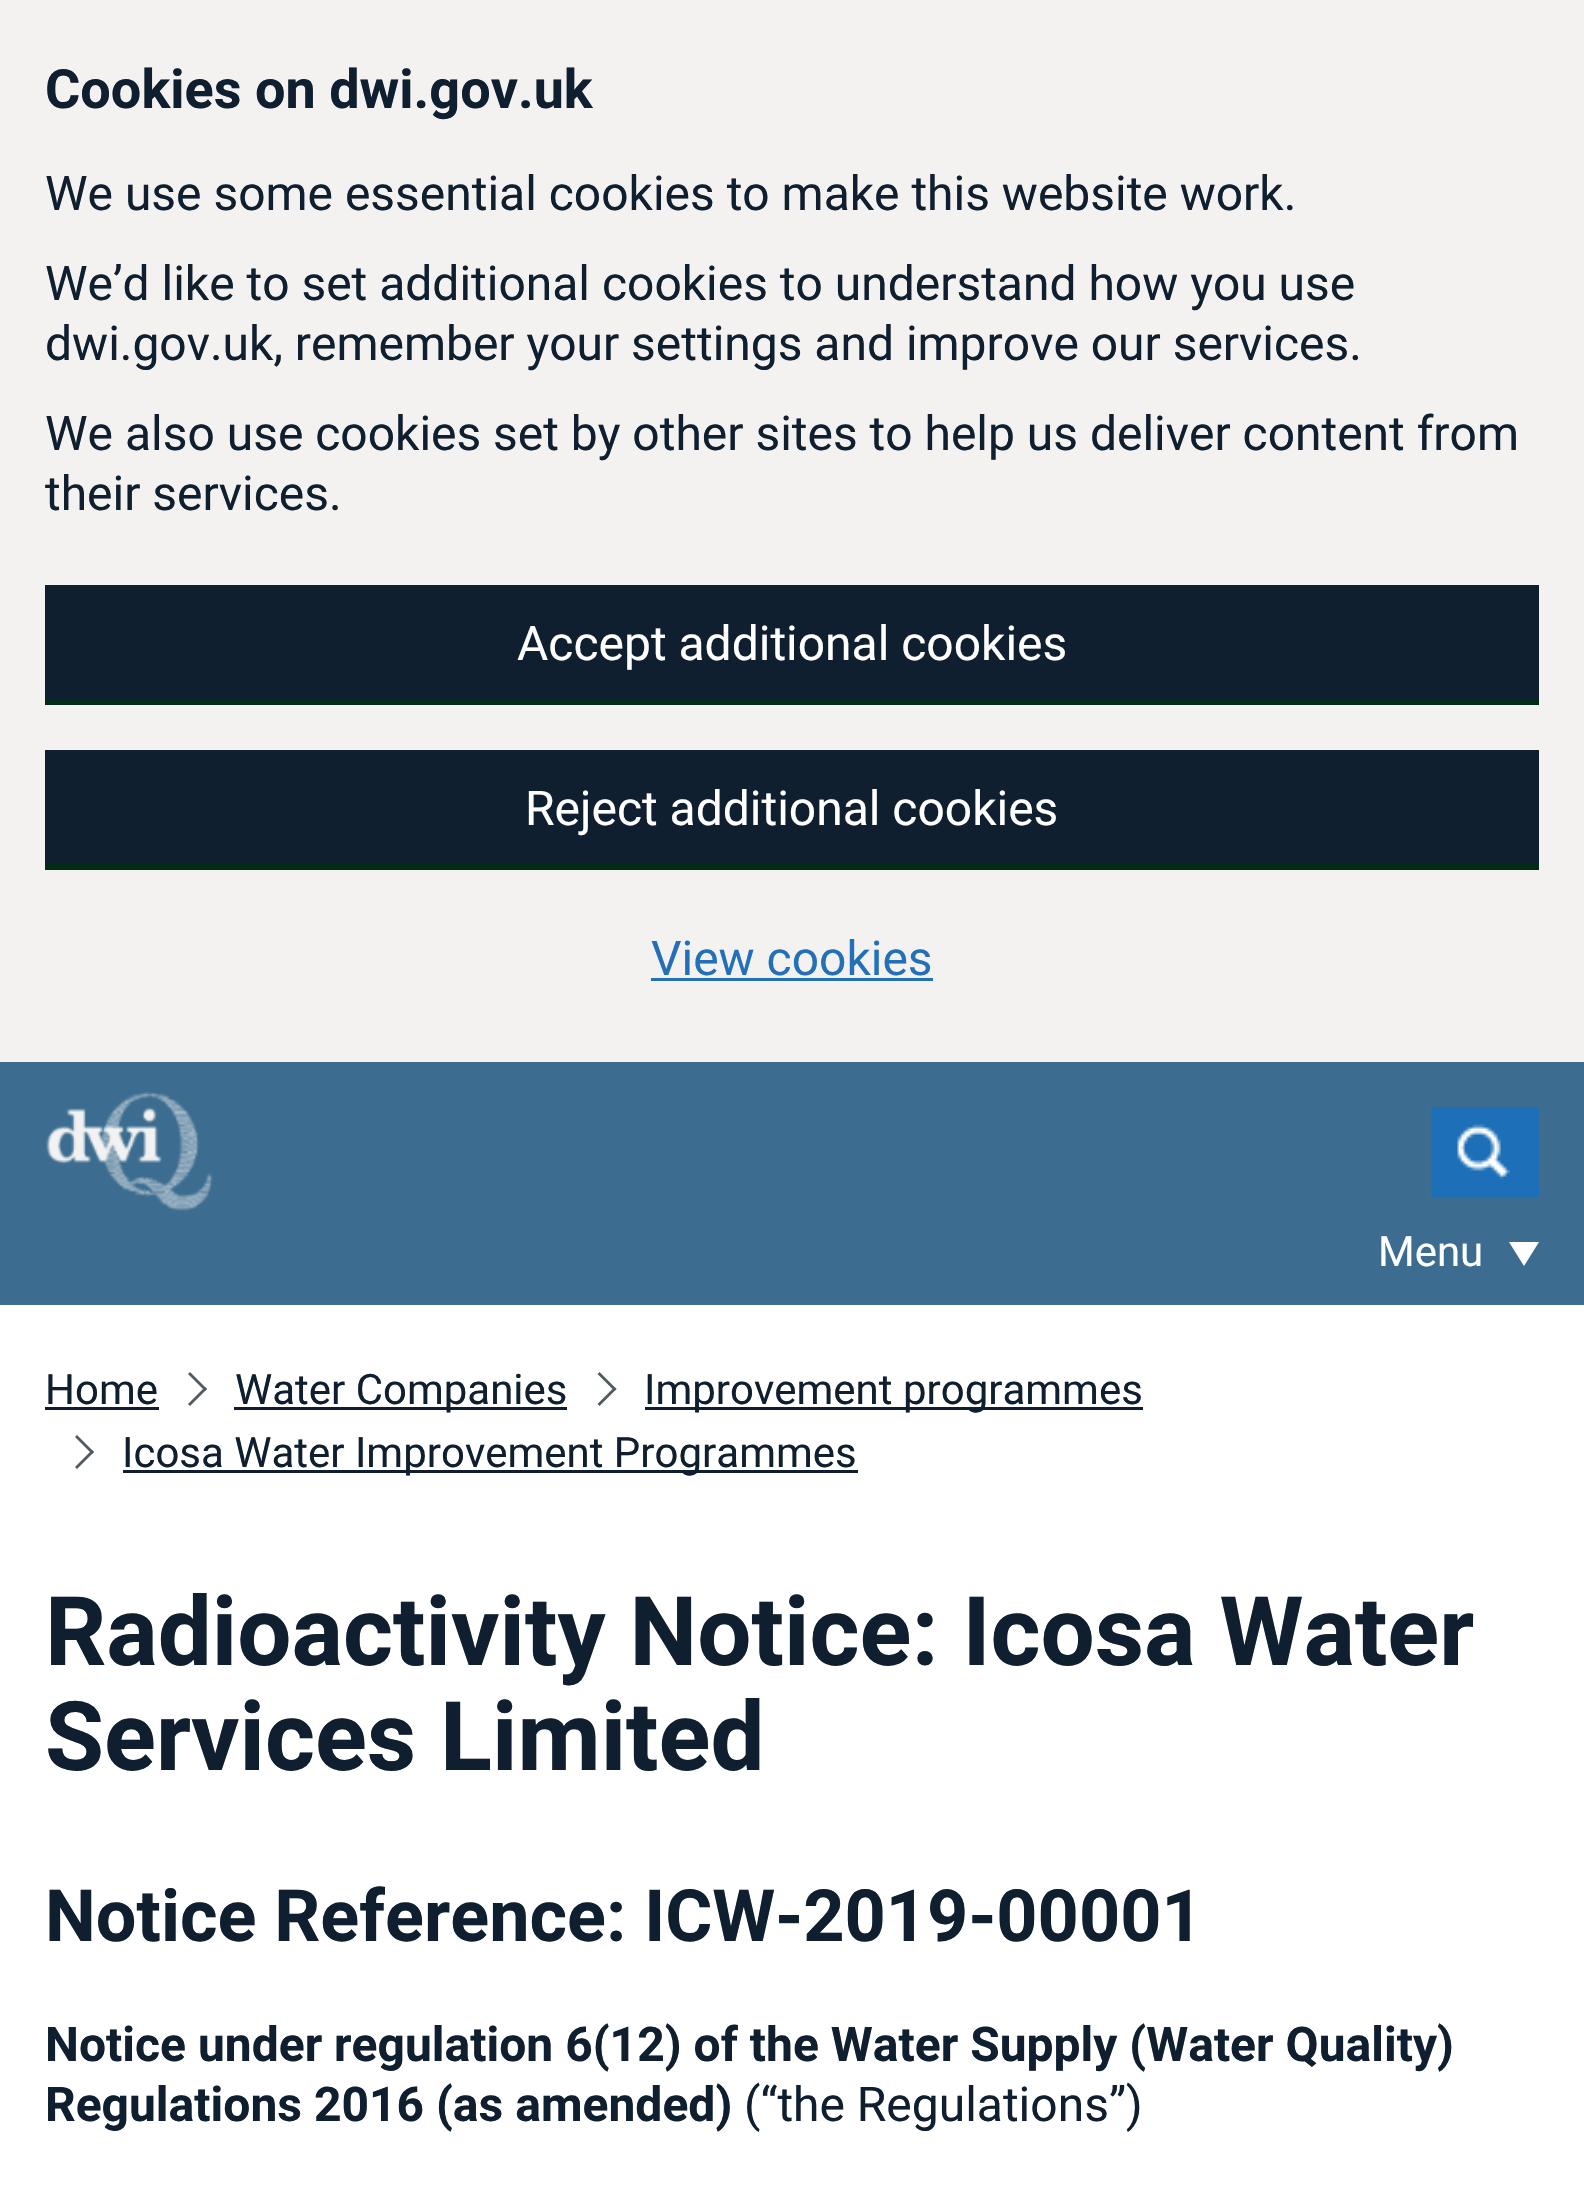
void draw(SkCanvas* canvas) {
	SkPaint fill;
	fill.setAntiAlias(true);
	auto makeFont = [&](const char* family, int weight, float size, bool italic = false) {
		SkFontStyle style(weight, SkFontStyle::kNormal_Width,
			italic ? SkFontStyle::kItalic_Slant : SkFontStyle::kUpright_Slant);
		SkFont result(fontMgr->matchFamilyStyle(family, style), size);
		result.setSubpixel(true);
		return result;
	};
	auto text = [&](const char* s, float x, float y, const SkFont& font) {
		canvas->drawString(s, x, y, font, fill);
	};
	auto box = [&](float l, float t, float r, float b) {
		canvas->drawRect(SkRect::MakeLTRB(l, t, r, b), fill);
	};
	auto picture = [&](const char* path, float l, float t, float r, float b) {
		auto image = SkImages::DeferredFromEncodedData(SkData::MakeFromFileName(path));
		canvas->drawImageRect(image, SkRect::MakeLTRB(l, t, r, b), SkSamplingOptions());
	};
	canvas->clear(0xFFFFFFFF);
	fill.setColor(0xFFF3F2F1);
	box(0, 0, 1584, 1062);
	fill.setColor(0xFF002D18);
	box(45, 699, 1539, 705);
	fill.setColor(0xFF0F1F2F);
	box(45, 585, 1539, 699);
	fill.setColor(0xFF002D18);
	box(45, 864, 1539, 870);
	fill.setColor(0xFF0F1F2F);
	box(45, 750, 1539, 864);
	fill.setColor(0xFF2470B8);
	box(651, 978, 933, 981);
	fill.setColor(0xFF3C6D90);
	box(0, 1062, 1584, 1305);
	picture("image0.png", 46, 1092, 213, 1211);
	fill.setColor(0xFF1D70B8);
	box(1431, 1107, 1539, 1197);
	picture("image1.png", 1457, 1124, 1510, 1180);
	fill.setColor(0xFFFFFFFF);
	canvas->drawPath(SkPathBuilder().moveTo(1509, 1242).lineTo(1539, 1242).lineTo(1524, 1266).close().detach(), fill);
	fill.setColor(0xFF0F1F2F);
	box(45, 1407, 159, 1410);
	fill.setColor(0xFF505A5F);
	canvas->drawPath(SkPathBuilder().moveTo(190, 1372).lineTo(207, 1389).lineTo(205, 1391).lineTo(188, 1374).close().detach(), fill);
	canvas->drawPath(SkPathBuilder().moveTo(205, 1387).lineTo(207, 1389).lineTo(190, 1406).lineTo(188, 1404).close().detach(), fill);
	fill.setColor(0xFF0F1F2F);
	box(234, 1407, 567, 1410);
	fill.setColor(0xFF505A5F);
	canvas->drawPath(SkPathBuilder().moveTo(599.5f, 1372).lineTo(616.5f, 1389).lineTo(614.5f, 1391).lineTo(597.5f, 1374).close().detach(), fill);
	canvas->drawPath(SkPathBuilder().moveTo(614.5f, 1387).lineTo(616.5f, 1389).lineTo(599.5f, 1406).lineTo(597.5f, 1404).close().detach(), fill);
	fill.setColor(0xFF0F1F2F);
	box(645, 1407, 1143, 1410);
	fill.setColor(0xFF505A5F);
	canvas->drawPath(SkPathBuilder().moveTo(77, 1435).lineTo(94, 1452).lineTo(92, 1454).lineTo(75, 1437).close().detach(), fill);
	canvas->drawPath(SkPathBuilder().moveTo(92, 1450).lineTo(94, 1452).lineTo(77, 1469).lineTo(75, 1467).close().detach(), fill);
	fill.setColor(0xFF0F1F2F);
	box(123, 1470, 858, 1473);
	auto font1 = makeFont("Roboto", 700, 54);
	text("Cookies on dwi.gov.uk", 45, 108, font1);
	auto font2 = makeFont("Roboto", 400, 48);
	text("We use some essential cookies to make this website work.", 45, 210, font2);
	text("We’d like to set additional cookies to understand how you use", 45, 300, font2);
	text("dwi.gov.uk, remember your settings and improve our services.", 45, 360, font2);
	text("We also use cookies set by other sites to help us deliver content from", 45, 450, font2);
	text("their services.", 45, 510, font2);
	fill.setColor(0xFFFFFFFF);
	text("Accept additional cookies", 517, 660, font2);
	text("Reject additional cookies", 525, 825, font2);
	fill.setColor(0xFF2470B8);
	text("View cookies", 651, 975, font2);
	auto font3 = makeFont("Roboto", 400, 42);
	fill.setColor(0xFFFFFFFF);
	text("Menu", 1378, 1266, font3);
	fill.setColor(0xFF0F1F2F);
	text("Home", 45, 1404, font3);
	text("Water Companies", 235, 1404, font3);
	text("Improvement programmes", 644, 1404, font3);
	text("Icosa Water Improvement Programmes", 122, 1467, font3);
	auto font4 = makeFont("Roboto", 700, 96);
	text("Radioactivity Notice: Icosa Water", 45, 1665, font4);
	text("Services Limited", 45, 1770, font4);
	auto font5 = makeFont("Roboto", 700, 72);
	text("Notice Reference: ICW-2019-00001", 45, 1941, font5);
	auto font6 = makeFont("Roboto", 700, 48);
	text("Notice under regulation 6(12) of the Water Supply (Water Quality)", 45, 2061, font6);
	text("Regulations 2016 (as amended)", 45, 2121, font6);
	text("(“the Regulations”)", 744, 2121, font2);
}
